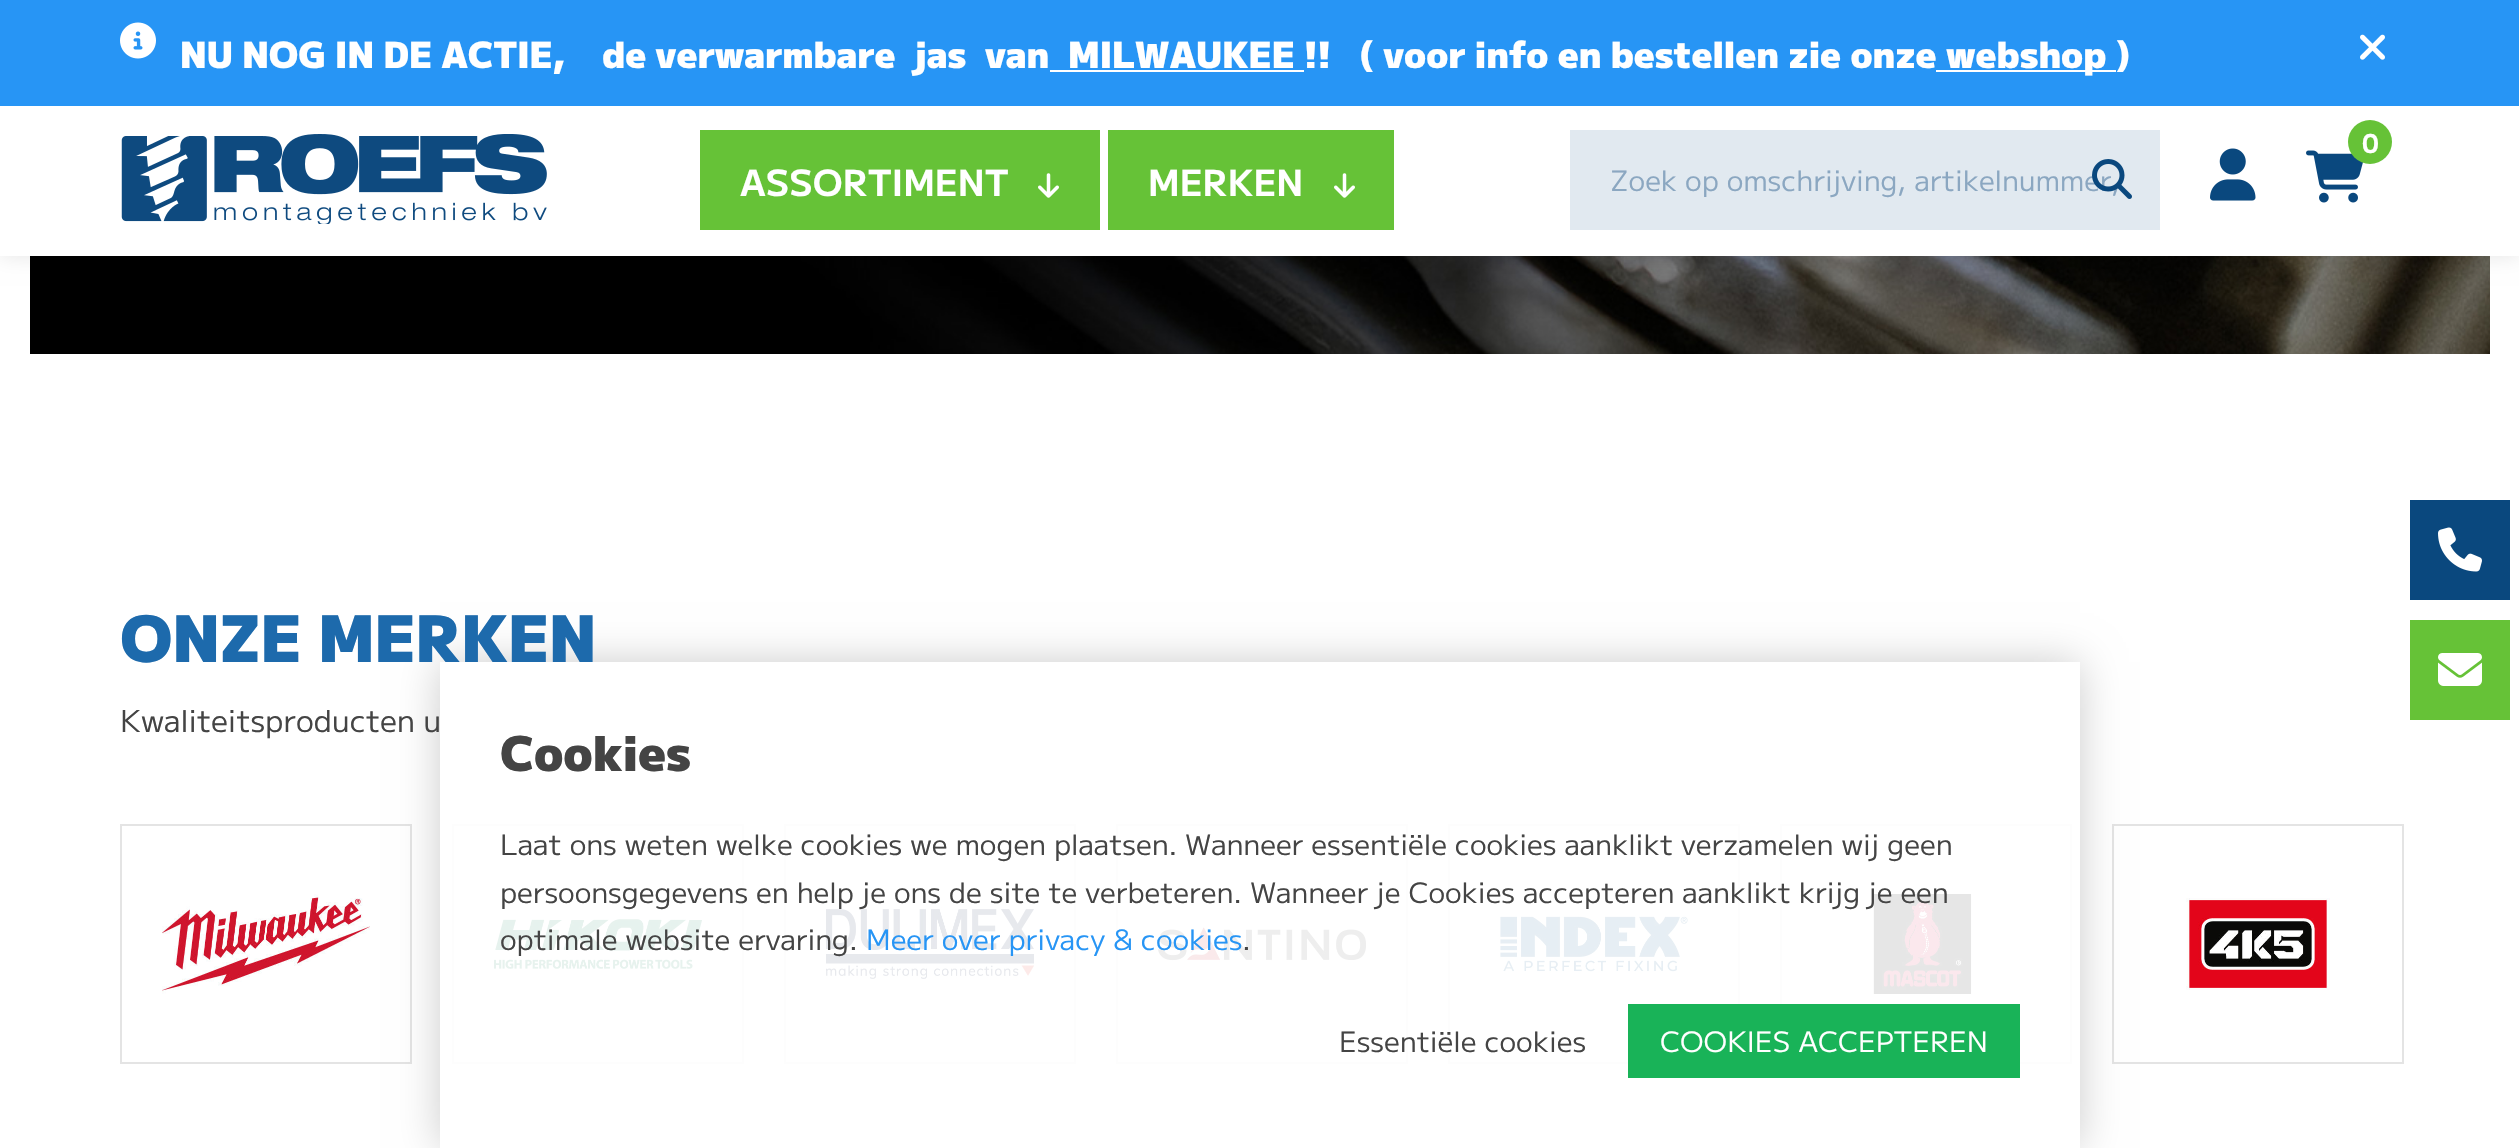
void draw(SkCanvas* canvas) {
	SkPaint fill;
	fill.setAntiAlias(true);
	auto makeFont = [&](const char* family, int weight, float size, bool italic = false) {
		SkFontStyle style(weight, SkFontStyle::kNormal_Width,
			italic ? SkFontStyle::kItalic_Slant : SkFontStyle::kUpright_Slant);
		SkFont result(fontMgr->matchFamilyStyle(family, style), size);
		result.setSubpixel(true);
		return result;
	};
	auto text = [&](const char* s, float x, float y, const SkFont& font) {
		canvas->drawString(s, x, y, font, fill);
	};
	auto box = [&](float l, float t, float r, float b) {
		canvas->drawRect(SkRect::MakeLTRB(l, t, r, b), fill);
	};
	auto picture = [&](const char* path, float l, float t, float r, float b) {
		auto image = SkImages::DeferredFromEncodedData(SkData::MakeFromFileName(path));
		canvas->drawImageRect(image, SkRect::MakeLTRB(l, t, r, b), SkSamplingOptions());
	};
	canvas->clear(0xFFFFFFFF);
	picture("image9.png", 30, 256, 2490, 354);
	fill.setColor(0x1A000000);
	fill.setMaskFilter(SkMaskFilter::MakeBlur(kNormal_SkBlurStyle, 10));
	canvas->drawRect(SkRect::MakeLTRB(0, 106, 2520, 256), fill);
	fill.setMaskFilter(nullptr);
	fill.setColor(0xFFFFFFFF);
	box(0, 106, 2519, 256);
	fill.setColor(0xFF2795F5);
	box(0, 0, 2519, 106);
	picture("image0.png", 120, 22, 156, 59);
	fill.setColor(0xFFFFFFFF);
	box(1050, 70, 1304, 72);
	box(1936, 70, 2116, 72);
	picture("image1.png", 2360, 34, 2385, 60);
	picture("image2.png", 121, 134, 547, 224);
	fill.setColor(0xFF66C237);
	box(700, 130, 1100, 230);
	picture("image3.png", 1038, 173, 1059, 198);
	box(1108, 130, 1394, 230);
	picture("image3.png", 1334, 173, 1355, 198);
	picture("image4.png", 2306, 150, 2363, 203);
	canvas->drawCircle(2370, 142, 22, fill);
	picture("image5.png", 2210, 148, 2256, 201);
	fill.setColor(0xFFE1E9F0);
	box(1570, 130, 2160, 230);
	fill.setColor(0xFF0A487E);
	box(2410, 500, 2510, 600);
	picture("image7.png", 2438, 527, 2482, 572);
	fill.setColor(0xFF66C237);
	box(2410, 620, 2510, 720);
	picture("image8.png", 2438, 653, 2482, 686);
	fill.setStyle(SkPaint::kStroke_Style);
	fill.setStrokeWidth(2);
	fill.setColor(0xFFE4E4E4);
	canvas->drawRect(SkRect::MakeLTRB(121, 825, 411, 1063), fill);
	picture("image10.png", 162, 894, 370, 994);
	canvas->drawRect(SkRect::MakeLTRB(453, 825, 743, 1063), fill);
	picture("image11.png", 494, 918, 702, 970);
	canvas->drawRect(SkRect::MakeLTRB(785, 825, 1075, 1063), fill);
	picture("image12.png", 826, 906, 1034, 982);
	canvas->drawRect(SkRect::MakeLTRB(1117, 825, 1407, 1063), fill);
	picture("image13.png", 1158, 926, 1366, 962);
	canvas->drawRect(SkRect::MakeLTRB(1449, 825, 1739, 1063), fill);
	picture("image14.png", 1498, 914, 1690, 974);
	canvas->drawRect(SkRect::MakeLTRB(1781, 825, 2071, 1063), fill);
	picture("image15.png", 1873, 894, 1972, 994);
	canvas->drawRect(SkRect::MakeLTRB(2113, 825, 2403, 1063), fill);
	picture("image16.png", 2186, 898, 2330, 990);
	canvas->save();
	canvas->clipPath(SkPathBuilder(SkPathFillType::kEvenOdd).moveTo(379, 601).lineTo(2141, 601).lineTo(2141, 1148).lineTo(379, 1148).close().moveTo(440, 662).lineTo(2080, 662).lineTo(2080, 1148).lineTo(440, 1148).close().detach(), true);
	fill.setStyle(SkPaint::kFill_Style);
	fill.setColor(0x33000000);
	fill.setMaskFilter(SkMaskFilter::MakeBlur(kNormal_SkBlurStyle, 20));
	canvas->drawRect(SkRect::MakeLTRB(440, 662, 2080, 1148), fill);
	fill.setMaskFilter(nullptr);
	canvas->restore();
	fill.setColor(0xE6FFFFFF);
	box(452, 824, 2072, 1064);
	fill.setColor(0xFF19B358);
	box(1628, 1004, 2020, 1078);
	auto font1 = makeFont("M PLUS 1", 900, 36);
	fill.setColor(0xFFFFFFFF);
	text("NU NOG IN DE ACTIE,    de verwarmbare  jas  van", 180, 68, font1);
	text("MILWAUKEE !!   ( voor info en bestellen zie onze", 1068, 68, font1);
	text("webshop )", 1946, 68, font1);
	auto font2 = makeFont("M PLUS 1", 700, 36);
	text("ASSORTIMENT", 740, 196, font2);
	text("MERKEN", 1148, 196, font2);
	auto font3 = makeFont("M PLUS 1", 700, 26);
	text("0", 2362, 153, font3);
	auto font4 = makeFont("M PLUS 1", 400, 28);
	fill.setColor(0xFF8BA7C1);
	text("Zoek op omschrijving, artikelnummer,", 1610, 191, font4);
	picture("image6.png", 2092, 159, 2132, 199);
	auto font5 = makeFont("M PLUS 1", 900, 64);
	fill.setColor(0xFF1D6AAC);
	text("ONZE MERKEN", 120, 662, font5);
	auto font6 = makeFont("M PLUS 1", 400, 30);
	fill.setColor(0xFF444444);
	text("Kwaliteitsproducten u", 120, 732, font6);
	auto font7 = makeFont("M PLUS 1", 900, 48);
	text("Cookies", 500, 771, font7);
	text("Laat ons weten welke cookies we mogen plaatsen. Wanneer essentiële cookies aanklikt verzamelen wij geen", 500, 855, font4);
	text("persoonsgegevens en help je ons de site te verbeteren. Wanneer je Cookies accepteren aanklikt krijg je een", 500, 903, font4);
	text("optimale website ervaring.", 500, 950, font4);
	fill.setColor(0xFF2795F5);
	text("Meer over privacy & cookies", 866, 950, font4);
	fill.setColor(0xFF444444);
	text(".", 1242, 950, font4);
	text("Essentiële cookies", 1339, 1052, font4);
	fill.setColor(0xFFFFFFFF);
	text("COOKIES ACCEPTEREN", 1660, 1052, font4);
}
